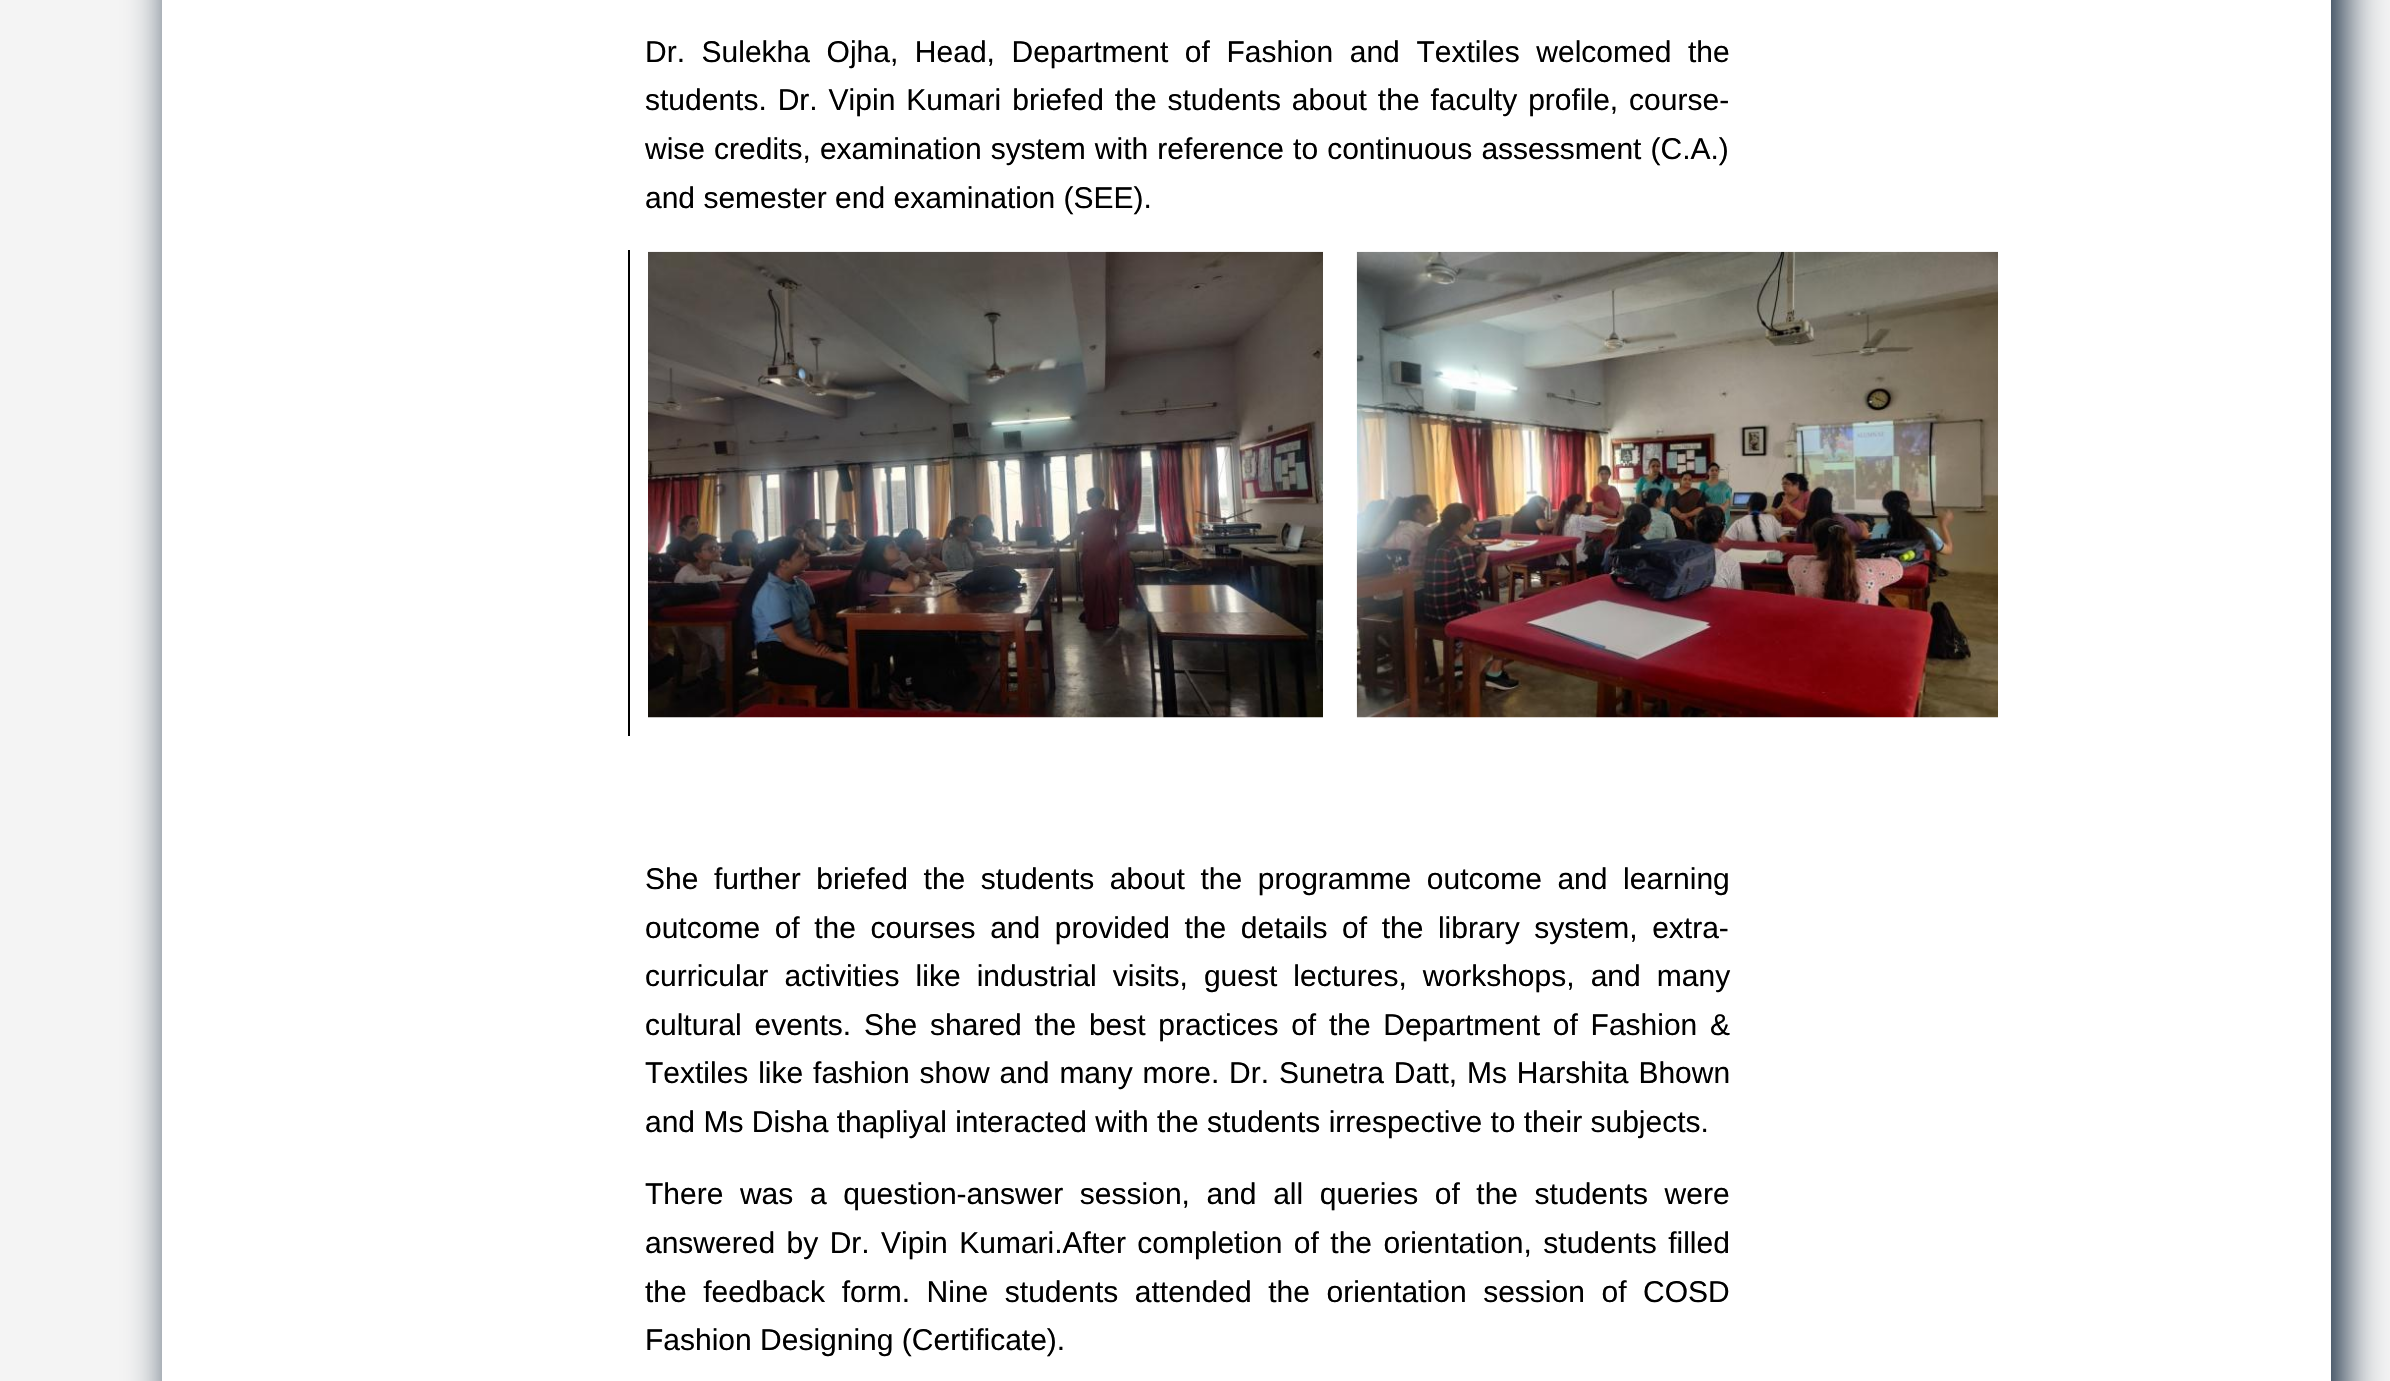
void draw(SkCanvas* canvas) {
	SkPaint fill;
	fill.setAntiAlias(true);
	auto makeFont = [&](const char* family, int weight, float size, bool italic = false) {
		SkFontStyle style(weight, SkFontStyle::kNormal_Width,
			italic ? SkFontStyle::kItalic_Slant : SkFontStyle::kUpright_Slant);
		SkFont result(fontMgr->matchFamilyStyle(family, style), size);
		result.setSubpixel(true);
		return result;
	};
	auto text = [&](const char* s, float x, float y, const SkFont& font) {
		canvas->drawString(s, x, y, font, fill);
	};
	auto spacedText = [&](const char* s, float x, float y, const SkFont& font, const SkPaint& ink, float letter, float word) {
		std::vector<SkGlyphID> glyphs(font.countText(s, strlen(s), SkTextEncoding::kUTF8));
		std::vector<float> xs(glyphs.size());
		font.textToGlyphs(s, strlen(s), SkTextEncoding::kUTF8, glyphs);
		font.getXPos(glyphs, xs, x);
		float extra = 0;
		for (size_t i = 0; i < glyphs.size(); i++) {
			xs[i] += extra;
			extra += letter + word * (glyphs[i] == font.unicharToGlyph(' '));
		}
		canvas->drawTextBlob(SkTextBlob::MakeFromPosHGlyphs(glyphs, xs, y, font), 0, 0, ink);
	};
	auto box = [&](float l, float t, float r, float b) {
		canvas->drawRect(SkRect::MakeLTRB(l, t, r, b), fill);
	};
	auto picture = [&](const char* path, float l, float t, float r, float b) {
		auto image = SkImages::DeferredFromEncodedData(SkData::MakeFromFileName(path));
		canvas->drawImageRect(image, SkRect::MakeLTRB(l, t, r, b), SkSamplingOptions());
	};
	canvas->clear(0xFFF4F4F4);
	fill.setColor(0xFF051B32);
	fill.setMaskFilter(SkMaskFilter::MakeBlur(kNormal_SkBlurStyle, 22.5f));
	canvas->drawRoundRect(SkRect::MakeLTRB(173, -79, 2342, 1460), 11, 11, fill);
	fill.setMaskFilter(nullptr);
	{
		const SkColor colors[] = {0xFFEEEEEE, 0xFFFFFFFF};
		const float stops[] = {0, 0.05f};
		const SkPoint ends[] = {{162, -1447}, {162, 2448}};
		fill.setShader(SkGradientShader::MakeLinear(ends, colors, stops, 2, SkTileMode::kClamp));
		fill.setAlpha(255);
	}
	box(162, 0, 2331, 1381);
	fill.setShader(nullptr);
	fill.setColor(0xFF000000);
	box(628, 250, 630, 736);
	picture("image0.png", 648, 251, 1323, 718);
	picture("image1.png", 1356, 251, 1998, 718);
	auto font1 = makeFont("Liberation Sans", 400, 30);
	spacedText("Dr. Sulekha Ojha, Head, Department of Fashion and Textiles welcomed the", 645, 62, font1, fill, 0, 8.25f);
	spacedText("students. Dr. Vipin Kumari briefed the students about the faculty profile, course-", 645, 110, font1, fill, 0, 2.6f);
	spacedText("wise credits, examination system with reference to continuous assessment (C.A.)", 645, 159, font1, fill, 0, 0.75f);
	text("and semester end examination (SEE).", 645, 208, font1);
	spacedText("She further briefed the students about the programme outcome and learning", 645, 889, font1, fill, 0, 7.25f);
	spacedText("outcome of the courses and provided the details of the library system, extra-", 645, 938, font1, fill, 0, 6.25f);
	spacedText("curricular activities like industrial visits, guest lectures, workshops, and many", 645, 986, font1, fill, 0, 7.75f);
	spacedText("cultural events. She shared the best practices of the Department of Fashion &", 645, 1035, font1, fill, 0, 4.4f);
	spacedText("Textiles like fashion show and many more. Dr. Sunetra Datt, Ms Harshita Bhown", 645, 1083, font1, fill, 0, 1.5f);
	text("and Ms Disha thapliyal interacted with the students irrespective to their subjects.", 645, 1132, font1);
	spacedText("There was a question-answer session, and all queries of the students were", 645, 1204, font1, fill, 0, 8.25f);
	spacedText("answered by Dr. Vipin Kumari.After completion of the orientation, students filled", 645, 1253, font1, fill, 0, 3.1f);
	spacedText("the feedback form. Nine students attended the orientation session of COSD", 645, 1302, font1, fill, 0, 8.25f);
	text("Fashion Designing (Certificate).", 645, 1350, font1);
}
